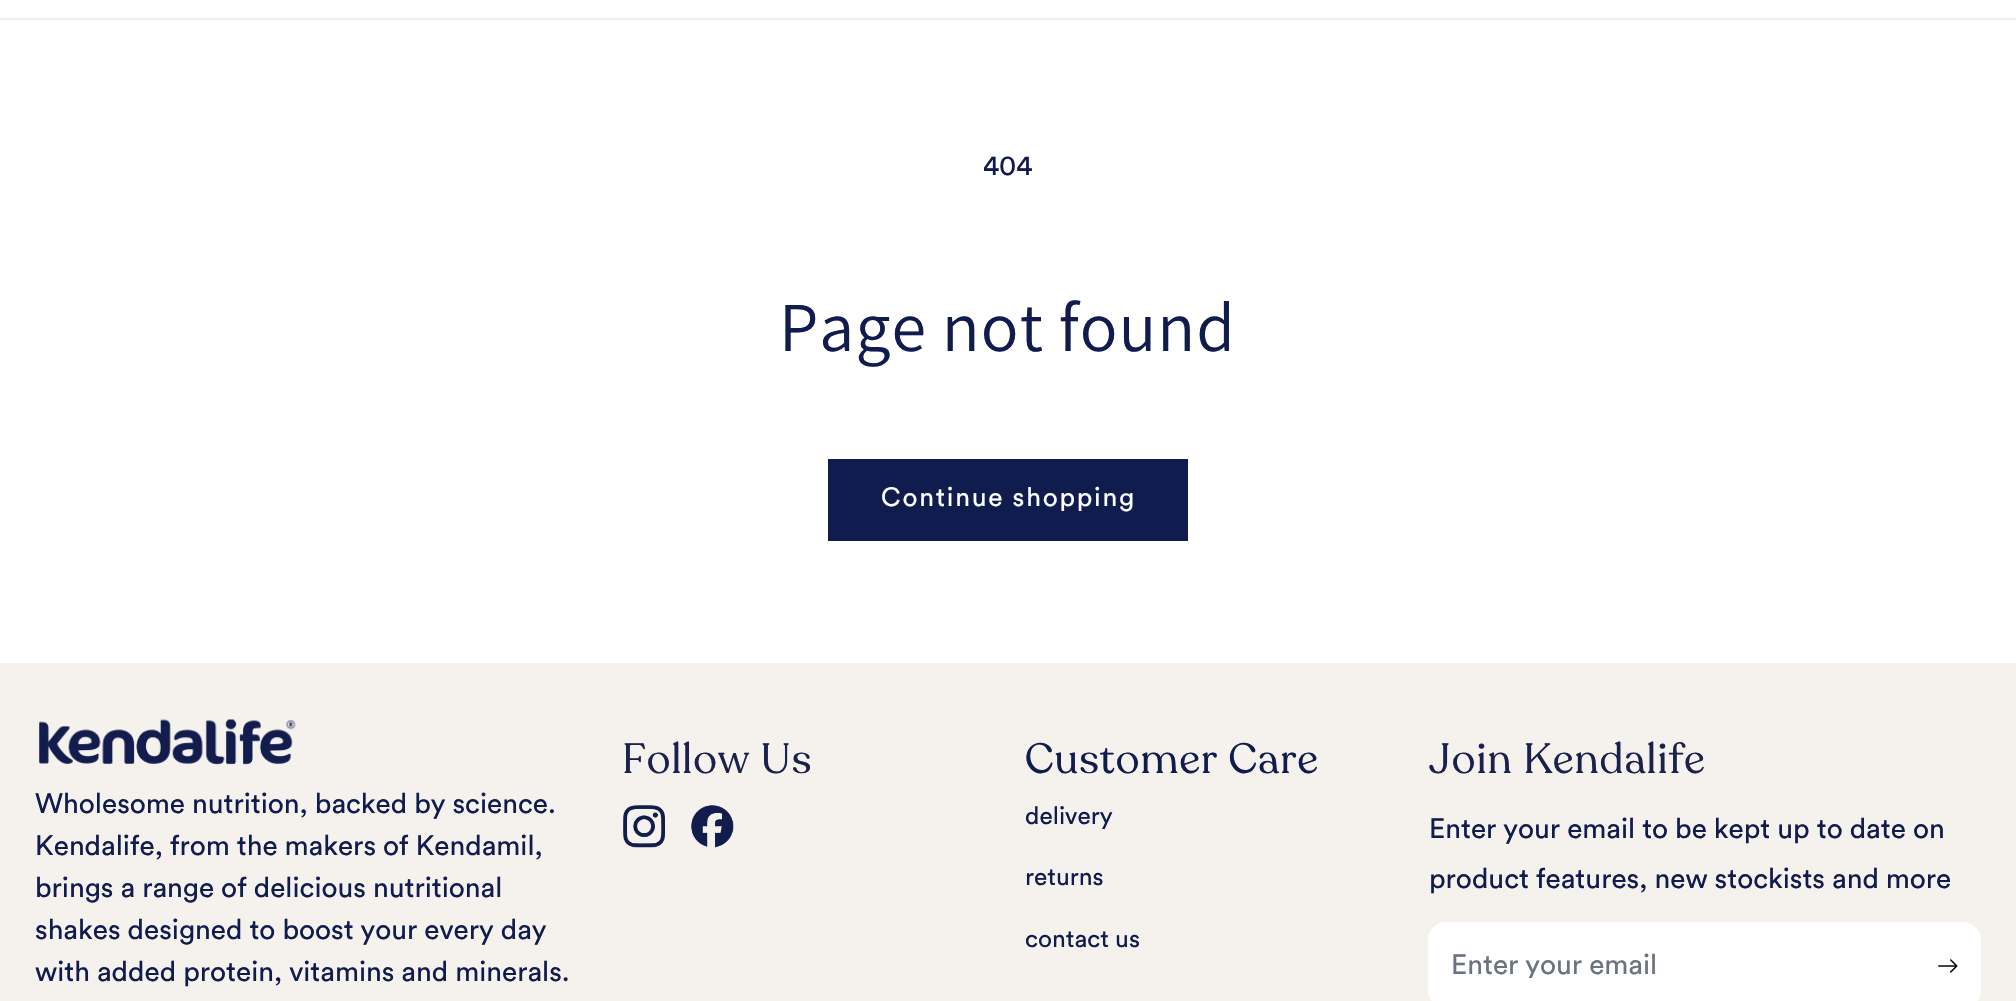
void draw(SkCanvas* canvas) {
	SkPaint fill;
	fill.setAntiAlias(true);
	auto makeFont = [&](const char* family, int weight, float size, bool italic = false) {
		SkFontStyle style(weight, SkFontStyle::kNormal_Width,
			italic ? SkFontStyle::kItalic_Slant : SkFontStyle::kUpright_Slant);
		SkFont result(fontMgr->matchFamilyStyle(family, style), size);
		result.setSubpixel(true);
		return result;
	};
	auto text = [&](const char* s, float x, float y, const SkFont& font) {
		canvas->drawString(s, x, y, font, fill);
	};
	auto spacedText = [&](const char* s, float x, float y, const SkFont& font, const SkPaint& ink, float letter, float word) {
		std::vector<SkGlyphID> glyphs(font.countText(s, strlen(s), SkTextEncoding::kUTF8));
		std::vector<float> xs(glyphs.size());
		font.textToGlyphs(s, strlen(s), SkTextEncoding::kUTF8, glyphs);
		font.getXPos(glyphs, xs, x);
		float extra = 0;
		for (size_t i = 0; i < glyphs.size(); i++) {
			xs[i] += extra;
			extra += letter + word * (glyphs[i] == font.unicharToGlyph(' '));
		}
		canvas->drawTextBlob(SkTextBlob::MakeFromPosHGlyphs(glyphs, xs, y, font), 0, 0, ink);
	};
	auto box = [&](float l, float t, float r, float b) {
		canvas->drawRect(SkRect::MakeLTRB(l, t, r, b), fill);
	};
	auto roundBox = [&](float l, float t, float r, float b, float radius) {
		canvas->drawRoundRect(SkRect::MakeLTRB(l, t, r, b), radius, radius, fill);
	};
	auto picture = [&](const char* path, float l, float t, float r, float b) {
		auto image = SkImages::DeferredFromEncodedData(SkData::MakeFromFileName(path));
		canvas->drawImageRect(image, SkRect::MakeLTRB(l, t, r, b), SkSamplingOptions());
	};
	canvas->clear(0xFFFFFFFF);
	fill.setColor(0xFFECEDF1);
	box(0, 18, 2016, 20);
	fill.setColor(0xFF111C4E);
	box(828, 459, 1188, 541);
	fill.setColor(0xFFF5F1ED);
	box(0, 663, 2016, 1001);
	picture("image0.png", 39, 719, 296, 765);
	picture("image1.png", 623, 805, 665, 848);
	picture("image2.png", 691, 805, 734, 848);
	fill.setColor(0xFFFFFFFF);
	roundBox(1428, 922, 1981, 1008, 18);
	picture("image3.png", 1938, 959, 1958, 973);
	auto font1 = makeFont("Circular", 400, 28);
	fill.setColor(0xFF111C4E);
	text("404", 983, 175, font1);
	auto font2 = makeFont("Assistant", 400, 70);
	spacedText("Page not found", 779, 351, font2, fill, 1, 0);
	auto font3 = makeFont("Circular", 400, 26.25f);
	fill.setColor(0xFFFFFFFF);
	spacedText("Continue shopping", 881, 506, font3, fill, 1.75f, 0);
	fill.setColor(0xFF111C4E);
	text("Wholesome nutrition, backed by science.", 35, 813, font1);
	text("Kendalife, from the makers of Kendamil,", 35, 855, font1);
	text("brings a range of delicious nutritional", 35, 897, font1);
	text("shakes designed to boost your every day", 35, 939, font1);
	text("with added protein, vitamins and minerals.", 35, 981, font1);
	auto font4 = makeFont("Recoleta", 400, 42);
	fill.setColor(0xFF1A214D);
	spacedText("Follow Us", 622, 773, font4, fill, 1, 0);
	fill.setColor(0xFF111C4E);
	spacedText("Customer Care", 1025, 773, font4, fill, 1, 0);
	auto font5 = makeFont("Circular", 400, 24.5f);
	text("delivery", 1025, 824, font5);
	text("returns", 1025, 885, font5);
	text("contact us", 1025, 947, font5);
	fill.setColor(0xFF1A214D);
	spacedText("Join Kendalife", 1429, 773, font4, fill, 1, 0);
	fill.setColor(0xFF111C4E);
	text("Enter your email to be kept up to date on", 1429, 838, font1);
	text("product features, new stockists and more", 1429, 888, font1);
	canvas->save();
	canvas->clipRect(SkRect::MakeLTRB(1451, 950, 1929, 978));
	fill.setColor(0xFF6B7280);
	text("Enter your email", 1451, 974, font1);
	canvas->restore();
}
